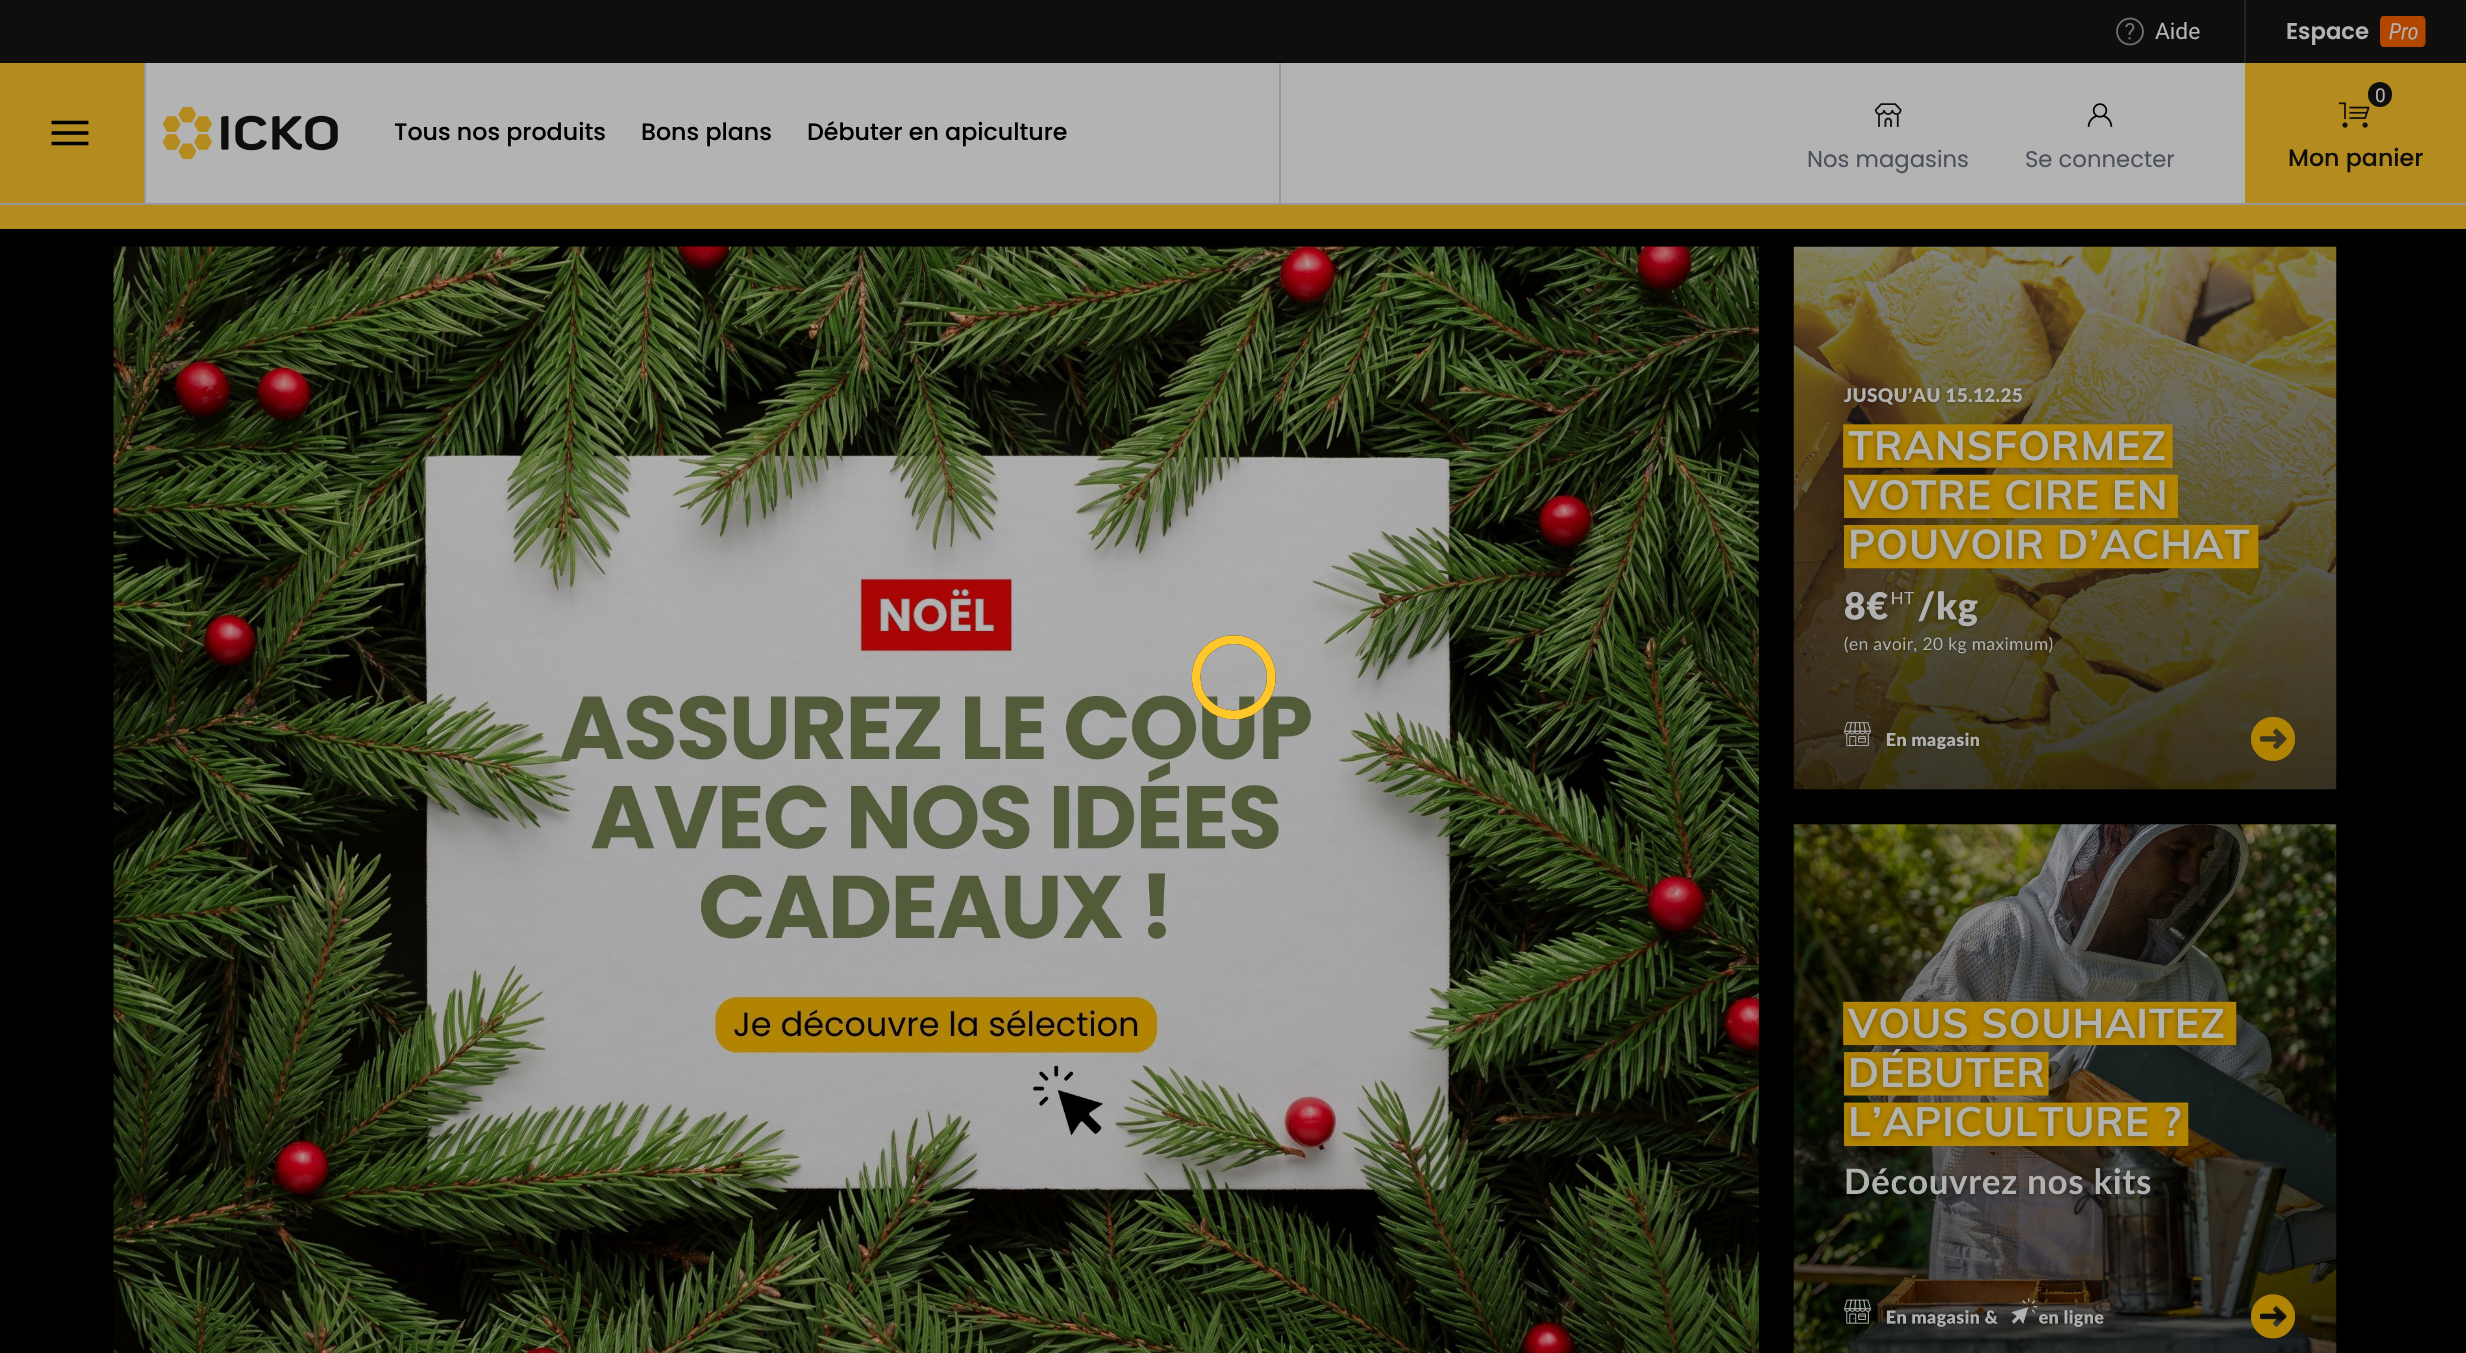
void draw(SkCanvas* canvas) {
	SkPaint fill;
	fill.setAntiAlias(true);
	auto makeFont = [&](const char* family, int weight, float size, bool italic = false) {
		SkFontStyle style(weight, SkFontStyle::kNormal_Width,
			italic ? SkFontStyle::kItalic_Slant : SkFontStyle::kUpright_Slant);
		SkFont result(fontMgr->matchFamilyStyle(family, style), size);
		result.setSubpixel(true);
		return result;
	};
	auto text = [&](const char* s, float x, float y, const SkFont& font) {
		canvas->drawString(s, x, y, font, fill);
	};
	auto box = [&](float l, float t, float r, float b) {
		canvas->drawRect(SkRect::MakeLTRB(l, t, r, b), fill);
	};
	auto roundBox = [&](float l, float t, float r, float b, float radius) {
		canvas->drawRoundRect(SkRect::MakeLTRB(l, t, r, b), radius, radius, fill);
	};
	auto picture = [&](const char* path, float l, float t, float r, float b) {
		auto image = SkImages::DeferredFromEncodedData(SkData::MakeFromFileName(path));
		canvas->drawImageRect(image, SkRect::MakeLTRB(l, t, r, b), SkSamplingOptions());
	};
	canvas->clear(0xFFB38B1F);
	fill.setColor(0xFFB3B3B3);
	box(146, 63, 2245, 203);
	fill.setColor(0xFF979797);
	box(0, 203, 2466, 205);
	fill.setColor(0xFF0F0E0D);
	box(0, 0, 2466, 63);
	picture("image0.png", 2116, 17, 2144, 46);
	fill.setColor(0xFF232222);
	box(2244, 0, 2246, 63);
	picture("image1.png", 2380, 16, 2426, 47);
	picture("image2.png", 51, 120, 89, 146);
	fill.setColor(0xFF979797);
	box(144, 63, 146, 203);
	picture("image3.png", 163, 107, 338, 159);
	box(1279, 63, 1281, 203);
	picture("image4.png", 2338, 102, 2370, 128);
	fill.setColor(0xFF0F0E0D);
	roundBox(2368, 82, 2392, 107, 12);
	picture("image5.png", 1874, 103, 1902, 127);
	picture("image6.png", 2087, 103, 2113, 127);
	fill.setColor(0xFF000000);
	box(0, 229, 2466, 1353);
	picture("image7.png", 113, 246, 1759, 1353);
	picture("image8.png", 113, 246, 1759, 1353);
	fill.setStyle(SkPaint::kStroke_Style);
	fill.setStrokeWidth(8.8f);
	canvas->drawPath(SkPathBuilder().moveTo(1260.5f, 650.5f).cubicTo(1275, 665.5f, 1275, 689, 1260.5f, 704).cubicTo(1245.5f, 718.5f, 1222, 718.5f, 1207, 704).cubicTo(1192.5f, 689, 1192.5f, 665.5f, 1207, 650.5f).cubicTo(1222, 636, 1245.5f, 636, 1260.5f, 650.5f).close().detach(), fill);
	fill.setColor(0xFFFFC72C);
	canvas->drawPath(SkPathBuilder().moveTo(1260.5f, 650.5f).cubicTo(1275, 665.5f, 1275, 689, 1260.5f, 704).cubicTo(1245.5f, 718.5f, 1222, 718.5f, 1207, 704).cubicTo(1192.5f, 689, 1192.5f, 665.5f, 1207, 650.5f).cubicTo(1222, 636, 1245.5f, 636, 1260.5f, 650.5f).close().detach(), fill);
	picture("image9.png", 1793, 246, 2337, 790);
	picture("image10.png", 1793, 824, 2337, 1353);
	auto font1 = makeFont("Roboto", 400, 22.75f);
	fill.setStyle(SkPaint::kFill_Style);
	fill.setColor(0xFFB3B3B3);
	text("Aide", 2155, 39, font1);
	auto font2 = makeFont("Poppins", 600, 22.75f);
	text("Espace", 2286, 39, font2);
	auto font3 = makeFont("Poppins", 500, 23.75f);
	fill.setColor(0xFF000000);
	text("Tous nos produits", 394, 140, font3);
	text("Bons plans", 641, 140, font3);
	text("Débuter en apiculture", 807, 140, font3);
	auto font4 = makeFont("Roboto", 400, 19);
	fill.setColor(0xFFB3B3B3);
	text("0", 2375, 102, font4);
	fill.setColor(0xFF0F0E0D);
	text("Mon panier", 2288, 166, font3);
	auto font5 = makeFont("Poppins", 400, 22.75f);
	fill.setColor(0xFF4B505A);
	text("Nos magasins", 1807, 167, font5);
	text("Se connecter", 2025, 167, font5);
}
